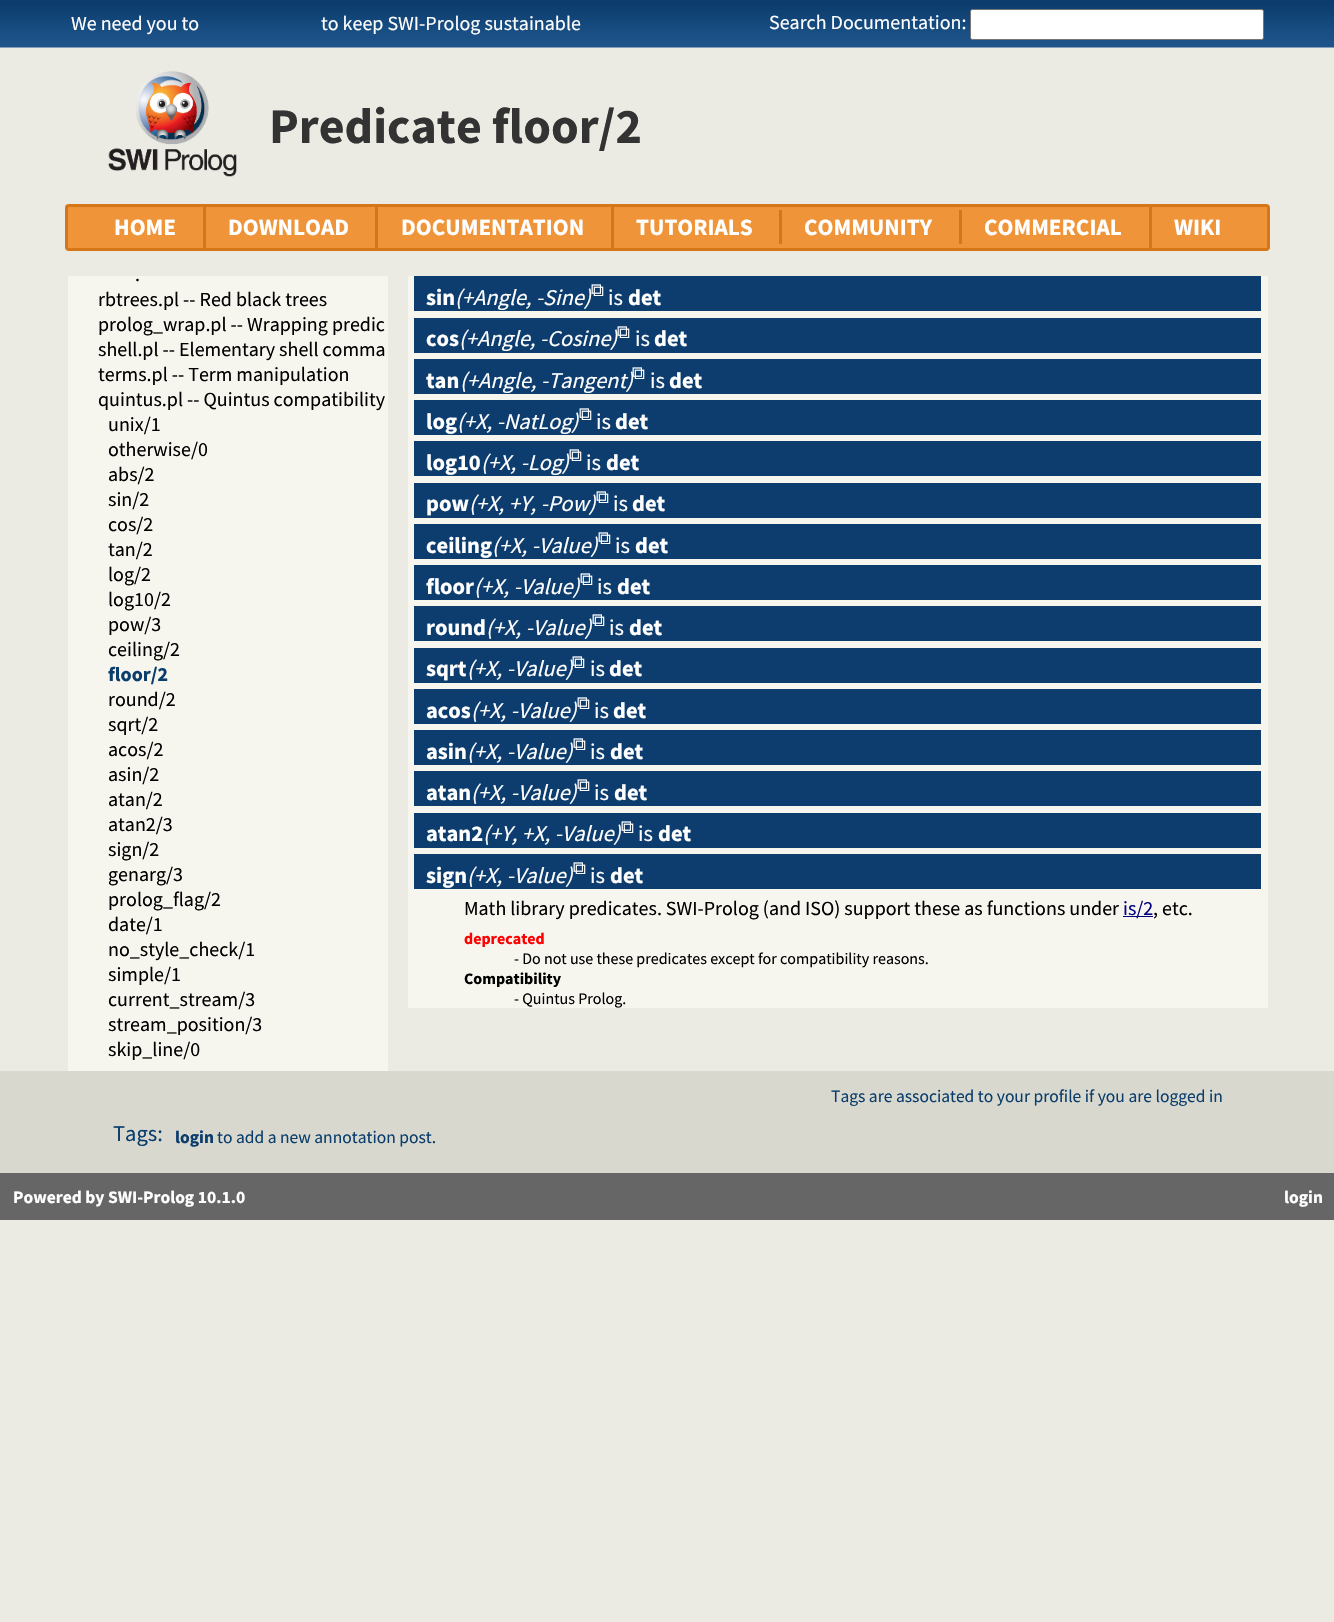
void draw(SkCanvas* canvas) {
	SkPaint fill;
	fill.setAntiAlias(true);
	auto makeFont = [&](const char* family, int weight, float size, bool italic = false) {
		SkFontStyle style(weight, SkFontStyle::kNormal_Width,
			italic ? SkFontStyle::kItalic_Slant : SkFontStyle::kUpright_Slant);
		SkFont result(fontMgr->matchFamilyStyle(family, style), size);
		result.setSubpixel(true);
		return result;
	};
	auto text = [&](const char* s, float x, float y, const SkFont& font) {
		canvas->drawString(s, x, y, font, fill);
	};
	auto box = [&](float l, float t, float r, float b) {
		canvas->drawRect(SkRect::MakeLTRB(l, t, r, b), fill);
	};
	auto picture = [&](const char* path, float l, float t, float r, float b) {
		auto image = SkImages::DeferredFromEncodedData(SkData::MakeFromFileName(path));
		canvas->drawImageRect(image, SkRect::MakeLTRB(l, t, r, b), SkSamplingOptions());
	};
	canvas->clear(0xFFECEBE3);
	picture("image0.png", 0, 0, 1334, 48);
	fill.setColor(0xFFFFFFFF);
	canvas->drawRoundRect(SkRect::MakeLTRB(970.5f, 9.5f, 1263.5f, 39.5f), 2, 2, fill);
	fill.setStyle(SkPaint::kStroke_Style);
	fill.setStrokeWidth(1);
	fill.setColor(0xFF767676);
	canvas->drawRoundRect(SkRect::MakeLTRB(970.5f, 9.5f, 1263.5f, 39.5f), 2, 2, fill);
	picture("image1.png", 108, 71, 237, 177);
	fill.setStyle(SkPaint::kFill_Style);
	fill.setColor(0xFFEF9439);
	canvas->drawRoundRect(SkRect::MakeLTRB(66.5f, 205.5f, 1268.5f, 249.5f), 2.5f, 2.5f, fill);
	fill.setStyle(SkPaint::kStroke_Style);
	fill.setStrokeWidth(3);
	fill.setColor(0xFFD57719);
	canvas->drawRoundRect(SkRect::MakeLTRB(66.5f, 205.5f, 1268.5f, 249.5f), 2.5f, 2.5f, fill);
	fill.setStyle(SkPaint::kFill_Style);
	box(203, 206, 206, 249);
	box(375, 206, 378, 249);
	box(611, 206, 614, 249);
	box(779, 210, 782, 244);
	box(959, 210, 962, 244);
	box(1149, 206, 1152, 249);
	fill.setColor(0xFFF6F5EE);
	box(68, 276, 388, 1071);
	box(408, 276, 1268, 1008);
	fill.setColor(0xFF0C3D6E);
	box(414, 276, 1261, 311);
	box(414, 318, 1261, 353);
	box(414, 359, 1261, 394);
	box(414, 400, 1261, 435);
	box(414, 441, 1261, 476);
	box(414, 483, 1261, 518);
	box(414, 524, 1261, 559);
	box(414, 565, 1261, 600);
	box(414, 606, 1261, 641);
	box(414, 648, 1261, 683);
	box(414, 689, 1261, 724);
	box(414, 730, 1261, 765);
	box(414, 771, 1261, 806);
	box(414, 813, 1261, 848);
	box(414, 854, 1261, 889);
	fill.setColor(0xFF000080);
	box(1123, 916, 1153, 917);
	fill.setColor(0xFFD8D8CE);
	box(0, 1071, 1334, 1173);
	fill.setColor(0xFF666666);
	box(0, 1173, 1334, 1220);
	auto font1 = makeFont("Source Sans Pro", 400, 20);
	fill.setColor(0xFFFFFFFF);
	text("We need you to", 71, 30, font1);
	text("to keep SWI-Prolog sustainable", 321, 30, font1);
	text("Search Documentation:", 769, 29, font1);
	auto font2 = makeFont("Source Sans Pro", 700, 50);
	fill.setColor(0xFF333333);
	text("Predicate floor/2", 269, 143, font2);
	auto font3 = makeFont("Source Sans Pro", 700, 23.25f);
	fill.setColor(0xFFFFFFFF);
	text("HOME", 114, 235, font3);
	text("DOWNLOAD", 228, 235, font3);
	text("DOCUMENTATION", 401, 235, font3);
	text("TUTORIALS", 636, 235, font3);
	text("COMMUNITY", 804, 235, font3);
	text("COMMERCIAL", 984, 235, font3);
	text("WIKI", 1174, 235, font3);
	fill.setColor(0xFF000000);
	text(".", 135, 281, font1);
	text("rbtrees.pl -- Red black trees", 98, 306, font1);
	text("prolog_wrap.pl -- Wrapping predic", 98, 331, font1);
	text("shell.pl -- Elementary shell comma", 98, 356, font1);
	text("terms.pl -- Term manipulation", 98, 381, font1);
	text("quintus.pl -- Quintus compatibility", 98, 406, font1);
	text("unix/1", 108, 431, font1);
	text("otherwise/0", 108, 456, font1);
	text("abs/2", 108, 481, font1);
	text("sin/2", 108, 506, font1);
	text("cos/2", 108, 531, font1);
	text("tan/2", 108, 556, font1);
	text("log/2", 108, 581, font1);
	text("log10/2", 108, 606, font1);
	text("pow/3", 108, 631, font1);
	text("ceiling/2", 108, 656, font1);
	auto font4 = makeFont("Source Sans Pro", 700, 20);
	fill.setColor(0xFF0A3D6C);
	text("floor/2", 108, 681, font4);
	fill.setColor(0xFF000000);
	text("round/2", 108, 706, font1);
	text("sqrt/2", 108, 731, font1);
	text("acos/2", 108, 756, font1);
	text("asin/2", 108, 781, font1);
	text("atan/2", 108, 806, font1);
	text("atan2/3", 108, 831, font1);
	text("sign/2", 108, 856, font1);
	text("genarg/3", 108, 881, font1);
	text("prolog_flag/2", 108, 906, font1);
	text("date/1", 108, 931, font1);
	text("no_style_check/1", 108, 956, font1);
	text("simple/1", 108, 981, font1);
	text("current_stream/3", 108, 1006, font1);
	text("stream_position/3", 108, 1031, font1);
	text("skip_line/0", 108, 1056, font1);
	auto font5 = makeFont("Source Sans Pro", 700, 22.5f);
	fill.setColor(0xFFFFFFFF);
	text("sin", 426, 305, font5);
	auto font6 = makeFont("Source Sans Pro", 400, 22.5f, true);
	text("(+Angle, -Sine)", 455, 305, font6);
	auto font7 = makeFont("FreeSerif", 400, 18);
	text("⧉", 591, 296, font7);
	auto font8 = makeFont("Source Sans Pro", 400, 22.5f);
	text("is", 608, 305, font8);
	text("det", 628, 305, font5);
	text("cos", 426, 346, font5);
	text("(+Angle, -Cosine)", 459, 346, font6);
	text("⧉", 617, 338, font7);
	text("is", 635, 346, font8);
	text("det", 654, 346, font5);
	text("tan", 426, 388, font5);
	text("(+Angle, -Tangent)", 460, 388, font6);
	text("⧉", 632, 379, font7);
	text("is", 650, 388, font8);
	text("det", 669, 388, font5);
	text("log", 426, 429, font5);
	text("(+X, -NatLog)", 457, 429, font6);
	text("⧉", 579, 420, font7);
	text("is", 596, 429, font8);
	text("det", 615, 429, font5);
	text("log10", 426, 470, font5);
	text("(+X, -Log)", 481, 470, font6);
	text("⧉", 569, 461, font7);
	text("is", 586, 470, font8);
	text("det", 606, 470, font5);
	text("pow", 426, 511, font5);
	text("(+X, +Y, -Pow)", 469, 511, font6);
	text("⧉", 596, 503, font7);
	text("is", 613, 511, font8);
	text("det", 632, 511, font5);
	text("ceiling", 426, 553, font5);
	text("(+X, -Value)", 492, 553, font6);
	text("⧉", 598, 544, font7);
	text("is", 615, 553, font8);
	text("det", 635, 553, font5);
	text("floor", 426, 594, font5);
	text("(+X, -Value)", 474, 594, font6);
	text("⧉", 580, 585, font7);
	text("is", 597, 594, font8);
	text("det", 617, 594, font5);
	text("round", 426, 635, font5);
	text("(+X, -Value)", 486, 635, font6);
	text("⧉", 592, 626, font7);
	text("is", 609, 635, font8);
	text("det", 629, 635, font5);
	text("sqrt", 426, 676, font5);
	text("(+X, -Value)", 467, 676, font6);
	text("⧉", 572, 668, font7);
	text("is", 590, 676, font8);
	text("det", 609, 676, font5);
	text("acos", 426, 718, font5);
	text("(+X, -Value)", 471, 718, font6);
	text("⧉", 577, 709, font7);
	text("is", 594, 718, font8);
	text("det", 613, 718, font5);
	text("asin", 426, 759, font5);
	text("(+X, -Value)", 467, 759, font6);
	text("⧉", 573, 750, font7);
	text("is", 590, 759, font8);
	text("det", 610, 759, font5);
	text("atan", 426, 800, font5);
	text("(+X, -Value)", 471, 800, font6);
	text("⧉", 577, 791, font7);
	text("is", 594, 800, font8);
	text("det", 614, 800, font5);
	text("atan2", 426, 841, font5);
	text("(+Y, +X, -Value)", 483, 841, font6);
	text("⧉", 621, 833, font7);
	text("is", 638, 841, font8);
	text("det", 658, 841, font5);
	text("sign", 426, 883, font5);
	text("(+X, -Value)", 467, 883, font6);
	text("⧉", 573, 874, font7);
	text("is", 590, 883, font8);
	text("det", 610, 883, font5);
	fill.setColor(0xFF000000);
	text("Math library predicates. SWI-Prolog (and ISO) support these as functions under", 464, 915, font1);
	fill.setColor(0xFF000080);
	text("is/2", 1123, 915, font1);
	fill.setColor(0xFF000000);
	text(", etc.", 1153, 915, font1);
	auto font9 = makeFont("Source Sans Pro", 700, 16);
	fill.setColor(0xFFFF0000);
	text("deprecated", 464, 944, font9);
	auto font10 = makeFont("Source Sans Pro", 400, 16);
	fill.setColor(0xFF000000);
	text("- Do not use these predicates except for compatibility reasons.", 514, 964, font10);
	text("Compatibility", 464, 984, font9);
	text("- Quintus Prolog.", 514, 1004, font10);
	auto font11 = makeFont("Source Sans Pro", 400, 17.5f);
	fill.setColor(0xFF0A3D6C);
	text("Tags are associated to your profile if you are logged in", 831, 1102, font11);
	text("Tags:", 113, 1141, font8);
	auto font12 = makeFont("Source Sans Pro", 700, 17.5f);
	text("login", 175, 1143, font12);
	text("to add a new annotation post.", 217, 1143, font11);
	fill.setColor(0xFFFFFFFF);
	text("Powered by SWI-Prolog 10.1.0", 13, 1203, font12);
	text("login", 1284, 1203, font12);
}
